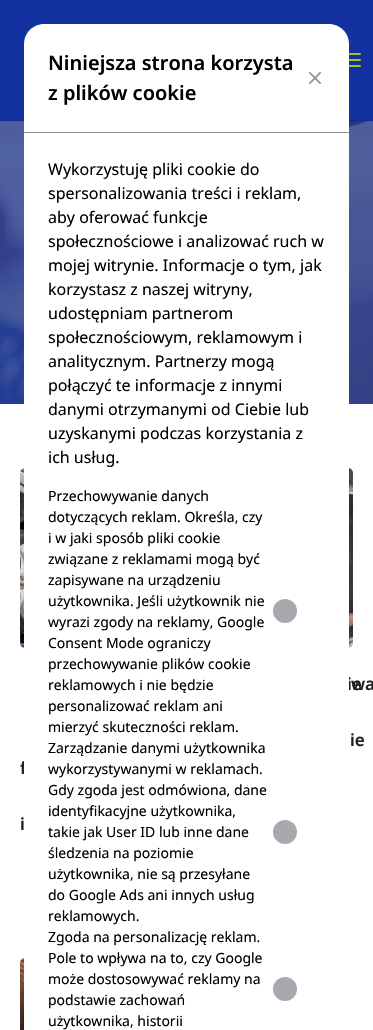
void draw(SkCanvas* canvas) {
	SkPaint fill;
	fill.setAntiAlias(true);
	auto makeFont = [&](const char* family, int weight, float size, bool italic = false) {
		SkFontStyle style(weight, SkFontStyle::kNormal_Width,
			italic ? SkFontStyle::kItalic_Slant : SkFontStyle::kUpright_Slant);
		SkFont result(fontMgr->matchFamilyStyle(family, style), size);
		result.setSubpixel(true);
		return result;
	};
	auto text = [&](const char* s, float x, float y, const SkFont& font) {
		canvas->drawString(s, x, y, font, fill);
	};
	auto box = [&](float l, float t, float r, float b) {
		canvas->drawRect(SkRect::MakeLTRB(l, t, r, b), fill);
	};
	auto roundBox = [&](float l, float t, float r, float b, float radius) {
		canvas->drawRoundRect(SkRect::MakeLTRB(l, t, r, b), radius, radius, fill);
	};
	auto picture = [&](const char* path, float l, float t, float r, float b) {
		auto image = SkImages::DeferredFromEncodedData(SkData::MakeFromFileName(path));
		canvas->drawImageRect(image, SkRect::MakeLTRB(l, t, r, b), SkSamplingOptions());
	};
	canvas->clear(0xFFFFFFFF);
	fill.setColor(0xFF13319F);
	box(0, 0, 373, 120);
	fill.setColor(0xFF112C8F);
	box(0, 120, 373, 121);
	fill.setColor(0xFFA2C617);
	roundBox(340, 53, 361, 55, 1);
	roundBox(340, 59, 361, 61, 1);
	roundBox(340, 65, 361, 67, 1);
	picture("image1.png", 0, 121, 373, 404);
	picture("image2.png", 349, 468, 353, 648);
	picture("image3.png", 20, 468, 24, 648);
	picture("image4.png", 20, 958, 24, 1030);
	auto font1 = makeFont("Noto Sans", 600, 17);
	fill.setColor(0xFF1F1F1F);
	text("ie", 347, 690, font1);
	text("wa", 351, 690, font1);
	text("ie", 350, 746, font1);
	text("f", 20, 774, font1);
	fill.setColor(0xFFFFFFFF);
	canvas->drawPath(SkPathBuilder().moveTo(44, 24).lineTo(329, 24).cubicTo(340, 24, 349, 33, 349, 44).lineTo(349, 1030).lineTo(24, 1030).lineTo(24, 44).cubicTo(24, 33, 33, 24, 44, 24).close().detach(), fill);
	fill.setColor(0xFFABA7AF);
	canvas->drawCircle(285, 989, 12, fill);
	canvas->drawCircle(285, 832, 12, fill);
	canvas->drawCircle(285, 611, 12, fill);
	picture("image0.png", 309, 72, 321, 84);
	auto font2 = makeFont("Noto Sans", 400, 14);
	fill.setColor(0xFF000000);
	text("użytkownika, historii", 48, 1026, font2);
	text("podstawie zachowań", 48, 1005, font2);
	text("może dostosowywać reklamy na", 48, 984, font2);
	text("Pole to wpływa na to, czy Google", 48, 963, font2);
	text("Zgoda na personalizację reklam.", 48, 942, font2);
	text("reklamowych.", 48, 921, font2);
	text("do Google Ads ani innych usług", 48, 900, font2);
	text("użytkownika, nie są przesyłane", 48, 879, font2);
	text("śledzenia na poziomie", 48, 858, font2);
	text("takie jak User ID lub inne dane", 48, 837, font2);
	text("identyfikacyjne użytkownika,", 48, 816, font2);
	text("Gdy zgoda jest odmówiona, dane", 48, 795, font2);
	text("wykorzystywanymi w reklamach.", 48, 774, font2);
	text("Zarządzanie danymi użytkownika", 48, 753, font2);
	text("mierzyć skuteczności reklam.", 48, 732, font2);
	text("personalizować reklam ani", 48, 711, font2);
	text("reklamowych i nie będzie", 48, 690, font2);
	text("przechowywanie plików cookie", 48, 669, font2);
	text("Consent Mode ograniczy", 48, 648, font2);
	text("wyrazi zgody na reklamy, Google", 48, 627, font2);
	text("użytkownika. Jeśli użytkownik nie", 48, 606, font2);
	text("zapisywane na urządzeniu", 48, 585, font2);
	text("związane z reklamami mogą być", 48, 564, font2);
	text("i w jaki sposób pliki cookie", 48, 543, font2);
	text("dotyczących reklam. Określa, czy", 48, 522, font2);
	text("Przechowywanie danych", 48, 501, font2);
	auto font3 = makeFont("Noto Sans", 400, 16);
	text("ich usług.", 48, 463, font3);
	text("uzyskanymi podczas korzystania z", 48, 439, font3);
	text("danymi otrzymanymi od Ciebie lub", 48, 415, font3);
	text("połączyć te informacje z innymi", 48, 391, font3);
	text("analitycznym. Partnerzy mogą", 48, 367, font3);
	text("społecznościowym, reklamowym i", 48, 343, font3);
	text("udostępniam partnerom", 48, 319, font3);
	text("korzystasz z naszej witryny,", 48, 295, font3);
	text("mojej witrynie. Informacje o tym, jak", 48, 271, font3);
	text("społecznościowe i analizować ruch w", 48, 247, font3);
	text("aby oferować funkcje", 48, 223, font3);
	text("spersonalizowania treści i reklam,", 48, 199, font3);
	text("Wykorzystuję pliki cookie do", 48, 175, font3);
	auto font4 = makeFont("Noto Sans", 600, 20);
	text("z plików cookie", 48, 100, font4);
	text("Niniejsza strona korzysta", 48, 70, font4);
	fill.setColor(0xFF8F8F8F);
	box(24, 132, 349, 133);
	fill.setColor(0xFF1F1F1F);
	text("i", 20, 830, font1);
}
